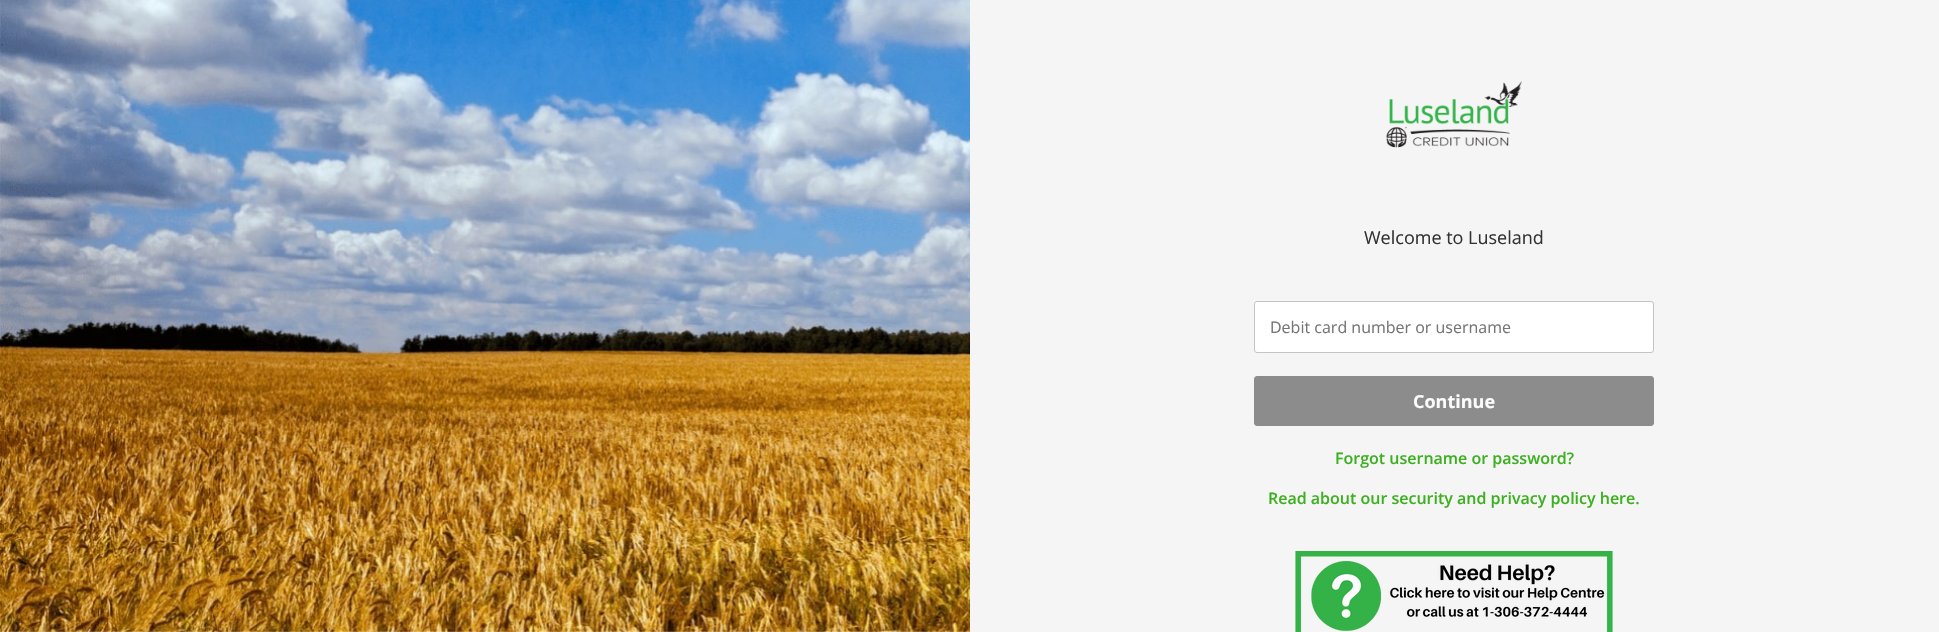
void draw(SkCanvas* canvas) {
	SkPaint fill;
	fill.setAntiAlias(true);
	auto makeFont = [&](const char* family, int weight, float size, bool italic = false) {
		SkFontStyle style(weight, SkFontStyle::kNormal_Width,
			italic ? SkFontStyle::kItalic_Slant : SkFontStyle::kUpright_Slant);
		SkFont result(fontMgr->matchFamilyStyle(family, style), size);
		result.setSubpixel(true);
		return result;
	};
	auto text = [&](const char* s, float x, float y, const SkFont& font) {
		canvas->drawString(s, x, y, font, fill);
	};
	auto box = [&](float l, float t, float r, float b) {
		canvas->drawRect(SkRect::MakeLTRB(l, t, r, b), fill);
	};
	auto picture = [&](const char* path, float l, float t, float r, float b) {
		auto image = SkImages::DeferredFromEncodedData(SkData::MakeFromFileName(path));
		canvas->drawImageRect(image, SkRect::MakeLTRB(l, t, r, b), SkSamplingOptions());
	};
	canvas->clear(0xFFFFFFFF);
	picture("image0.png", 0, 0, 970, 632);
	fill.setColor(0xFFF5F5F5);
	box(970, 0, 1939, 632);
	picture("image1.png", 1386, 81, 1522, 148);
	fill.setColor(0xFFFFFFFF);
	canvas->drawRoundRect(SkRect::MakeLTRB(1254.5f, 301.5f, 1653.5f, 352.5f), 2.5f, 2.5f, fill);
	fill.setStyle(SkPaint::kStroke_Style);
	fill.setStrokeWidth(1);
	fill.setColor(0xFFC4C4C4);
	canvas->drawRoundRect(SkRect::MakeLTRB(1254.5f, 301.5f, 1653.5f, 352.5f), 2.5f, 2.5f, fill);
	fill.setStyle(SkPaint::kFill_Style);
	fill.setColor(0xFF8C8C8C);
	canvas->drawRoundRect(SkRect::MakeLTRB(1254.5f, 376.5f, 1653.5f, 425.5f), 2.5f, 2.5f, fill);
	fill.setStyle(SkPaint::kStroke_Style);
	canvas->drawRoundRect(SkRect::MakeLTRB(1254.5f, 376.5f, 1653.5f, 425.5f), 2.5f, 2.5f, fill);
	picture("image2.png", 1295, 551, 1613, 632);
	auto font1 = makeFont("Open Sans", 400, 18);
	fill.setStyle(SkPaint::kFill_Style);
	fill.setColor(0xFF333333);
	text("Welcome to Luseland", 1364, 244, font1);
	auto font2 = makeFont("Open Sans", 400, 16);
	fill.setColor(0xFF757575);
	text("Debit card number or username", 1270, 333, font2);
	auto font3 = makeFont("Open Sans", 700, 18);
	fill.setColor(0xFFFCFCFC);
	text("Continue", 1413, 408, font3);
	auto font4 = makeFont("Open Sans", 600, 16);
	fill.setColor(0xFF3DB020);
	text("Forgot username or password?", 1335, 464, font4);
	text("Read about our security and privacy policy here.", 1268, 504, font4);
}
